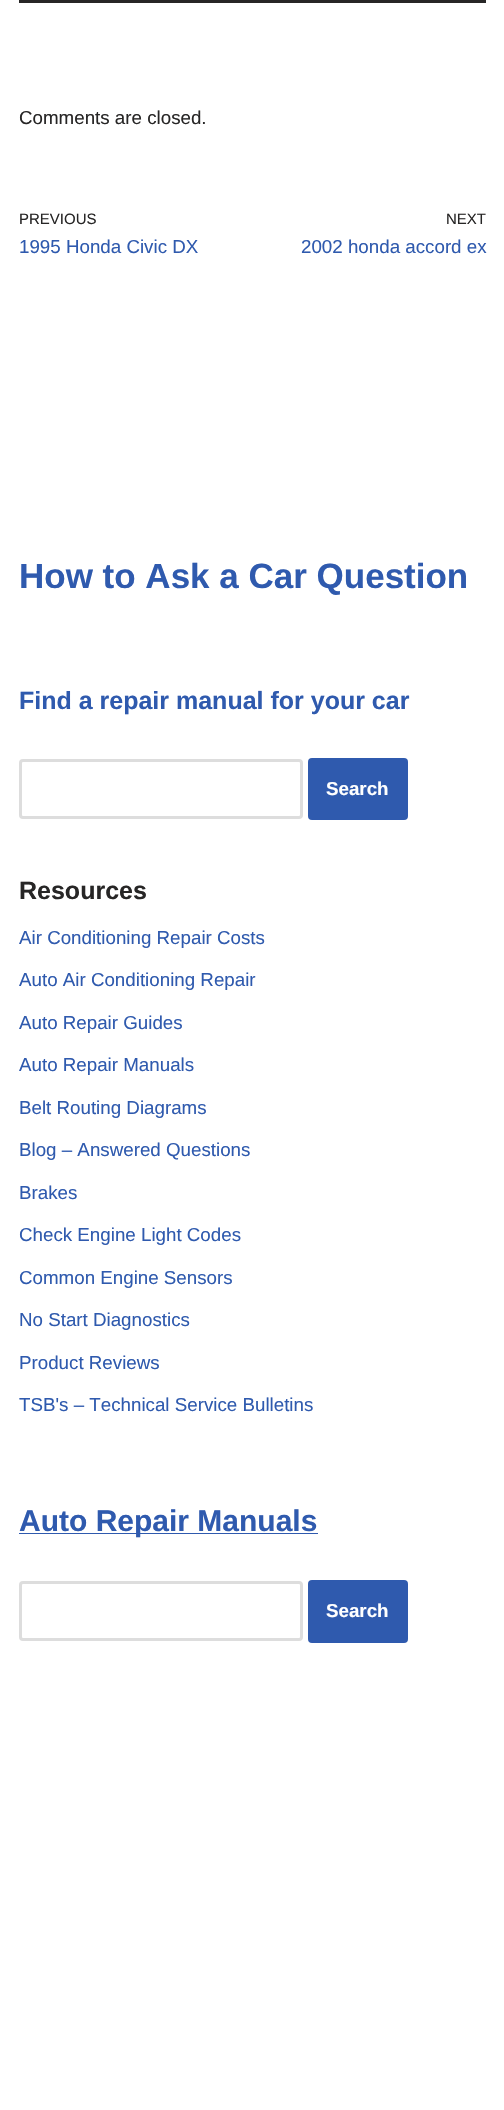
void draw(SkCanvas* canvas) {
	SkPaint fill;
	fill.setAntiAlias(true);
	auto makeFont = [&](const char* family, int weight, float size, bool italic = false) {
		SkFontStyle style(weight, SkFontStyle::kNormal_Width,
			italic ? SkFontStyle::kItalic_Slant : SkFontStyle::kUpright_Slant);
		SkFont result(fontMgr->matchFamilyStyle(family, style), size);
		result.setSubpixel(true);
		return result;
	};
	auto text = [&](const char* s, float x, float y, const SkFont& font) {
		canvas->drawString(s, x, y, font, fill);
	};
	auto box = [&](float l, float t, float r, float b) {
		canvas->drawRect(SkRect::MakeLTRB(l, t, r, b), fill);
	};
	auto roundBox = [&](float l, float t, float r, float b, float radius) {
		canvas->drawRoundRect(SkRect::MakeLTRB(l, t, r, b), radius, radius, fill);
	};
	canvas->clear(0xFFFFFFFF);
	fill.setColor(0xFF272626);
	box(19, 0, 486, 3);
	fill.setStyle(SkPaint::kStroke_Style);
	fill.setStrokeWidth(3);
	fill.setColor(0xFFDDDDDD);
	canvas->drawRoundRect(SkRect::MakeLTRB(20.5f, 760.5f, 301.5f, 817.5f), 2.5f, 2.5f, fill);
	fill.setStyle(SkPaint::kFill_Style);
	fill.setColor(0xFF2F5AAE);
	roundBox(308, 758, 408, 820, 4);
	box(19, 1533, 318, 1534);
	fill.setStyle(SkPaint::kStroke_Style);
	fill.setColor(0xFFDDDDDD);
	canvas->drawRoundRect(SkRect::MakeLTRB(20.5f, 1582.5f, 301.5f, 1639.5f), 2.5f, 2.5f, fill);
	fill.setStyle(SkPaint::kFill_Style);
	fill.setColor(0xFF2F5AAE);
	roundBox(308, 1580, 408, 1643, 4);
	auto font1 = makeFont("Liberation Sans", 400, 18.75f);
	fill.setColor(0xFF272626);
	text("Comments are closed.", 19, 124, font1);
	auto font2 = makeFont("Liberation Sans", 400, 15);
	text("PREVIOUS", 19, 224, font2);
	fill.setColor(0xFF2F5AAE);
	text("1995 Honda Civic DX", 19, 253, font1);
	fill.setColor(0xFF272626);
	text("NEXT", 446, 224, font2);
	fill.setColor(0xFF2F5AAE);
	text("2002 honda accord ex", 301, 253, font1);
	auto font3 = makeFont("Liberation Sans", 700, 35);
	text("How to Ask a Car Question", 19, 588, font3);
	auto font4 = makeFont("Liberation Sans", 700, 25);
	text("Find a repair manual for your car", 19, 709, font4);
	auto font5 = makeFont("Liberation Sans", 700, 18.75f);
	fill.setColor(0xFFFFFFFF);
	text("Search", 326, 795, font5);
	fill.setColor(0xFF272626);
	text("Resources", 19, 899, font4);
	fill.setColor(0xFF2F5AAE);
	text("Air Conditioning Repair Costs", 19, 944, font1);
	text("Auto Air Conditioning Repair", 19, 986, font1);
	text("Auto Repair Guides", 19, 1029, font1);
	text("Auto Repair Manuals", 19, 1071, font1);
	text("Belt Routing Diagrams", 19, 1114, font1);
	text("Blog – Answered Questions", 19, 1156, font1);
	text("Brakes", 19, 1199, font1);
	text("Check Engine Light Codes", 19, 1241, font1);
	text("Common Engine Sensors", 19, 1284, font1);
	text("No Start Diagnostics", 19, 1326, font1);
	text("Product Reviews", 19, 1369, font1);
	text("TSB's – Technical Service Bulletins", 19, 1411, font1);
	auto font6 = makeFont("Liberation Sans", 700, 30);
	text("Auto Repair Manuals", 19, 1531, font6);
	fill.setColor(0xFFFFFFFF);
	text("Search", 326, 1617, font5);
}
